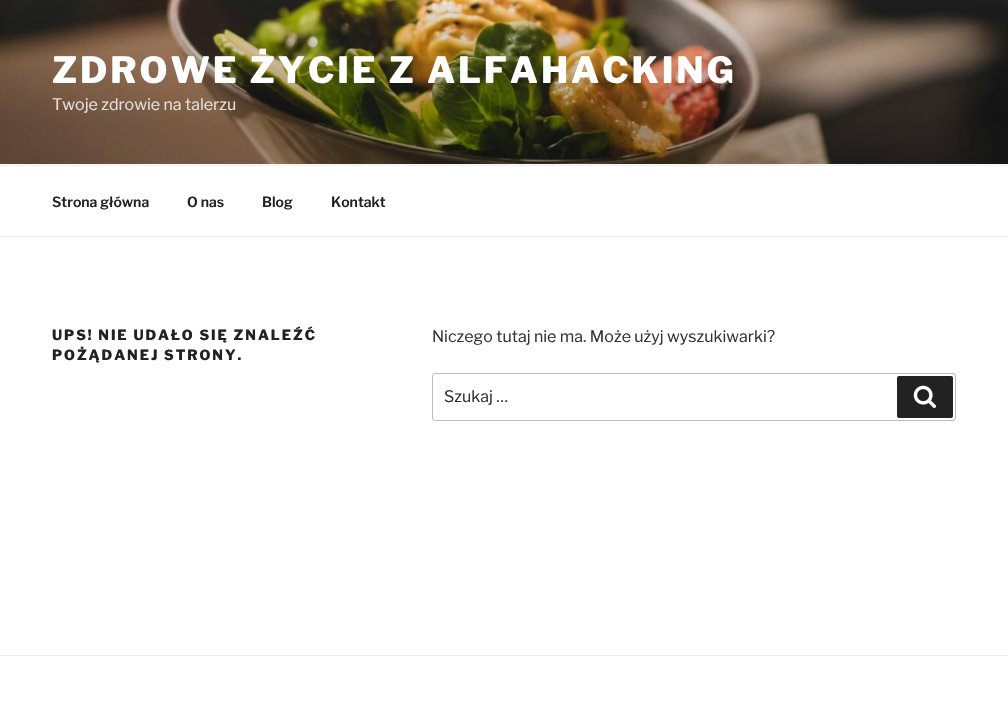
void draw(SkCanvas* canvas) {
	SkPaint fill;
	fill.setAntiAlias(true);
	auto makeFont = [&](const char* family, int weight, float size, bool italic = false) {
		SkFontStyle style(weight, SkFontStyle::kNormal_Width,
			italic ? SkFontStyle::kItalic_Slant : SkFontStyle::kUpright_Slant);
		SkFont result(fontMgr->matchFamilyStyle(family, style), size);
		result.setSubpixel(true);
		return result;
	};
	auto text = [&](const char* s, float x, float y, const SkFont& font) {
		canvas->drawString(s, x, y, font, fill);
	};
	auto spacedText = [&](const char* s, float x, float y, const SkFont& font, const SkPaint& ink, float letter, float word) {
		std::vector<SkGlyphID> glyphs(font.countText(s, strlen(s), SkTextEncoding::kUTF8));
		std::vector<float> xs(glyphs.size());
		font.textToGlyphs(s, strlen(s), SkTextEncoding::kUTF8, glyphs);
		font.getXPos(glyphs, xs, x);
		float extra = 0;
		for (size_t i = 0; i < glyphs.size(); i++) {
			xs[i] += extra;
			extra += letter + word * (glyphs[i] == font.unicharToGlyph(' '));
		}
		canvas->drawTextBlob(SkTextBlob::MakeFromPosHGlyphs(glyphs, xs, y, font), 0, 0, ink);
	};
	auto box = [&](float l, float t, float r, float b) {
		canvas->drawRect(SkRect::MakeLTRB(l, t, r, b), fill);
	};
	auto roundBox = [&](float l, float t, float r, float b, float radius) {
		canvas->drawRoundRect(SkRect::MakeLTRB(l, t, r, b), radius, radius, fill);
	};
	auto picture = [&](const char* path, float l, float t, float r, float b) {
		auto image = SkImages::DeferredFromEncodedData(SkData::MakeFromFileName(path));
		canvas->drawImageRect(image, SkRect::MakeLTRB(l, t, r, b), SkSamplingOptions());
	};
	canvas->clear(0xFFFFFFFF);
	fill.setColor(0xFFFAFAFA);
	box(0, 164, 1008, 165);
	picture("image0.png", 0, 0, 1008, 164);
	fill.setColor(0xFFEEEEEE);
	box(0, 165, 1008, 166);
	box(0, 236, 1008, 237);
	fill.setStyle(SkPaint::kStroke_Style);
	fill.setStrokeWidth(1);
	fill.setColor(0xFFBBBBBB);
	canvas->drawRoundRect(SkRect::MakeLTRB(432.5f, 373.5f, 955.5f, 420.5f), 2.5f, 2.5f, fill);
	fill.setStyle(SkPaint::kFill_Style);
	fill.setColor(0xFF222222);
	roundBox(897, 376, 953, 418, 2);
	picture("image1.png", 913, 385, 936, 408);
	fill.setColor(0xFFEEEEEE);
	box(0, 655, 1008, 656);
	auto font1 = makeFont("Libre Franklin", 100, 36);
	fill.setColor(0xFFFFFFFF);
	spacedText("ZDROWE ŻYCIE Z ALFAHACKING", 52, 83, font1, fill, 2.9f, 0);
	auto font2 = makeFont("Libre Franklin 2", 100, 16);
	fill.setColor(0xFFE4DEDA);
	text("Twoje zdrowie na talerzu", 52, 110, font2);
	auto font3 = makeFont("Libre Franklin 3", 100, 14);
	fill.setColor(0xFF222222);
	text("Strona główna", 52, 207, font3);
	text("O nas", 187, 207, font3);
	text("Blog", 262, 207, font3);
	text("Kontakt", 331, 207, font3);
	auto font4 = makeFont("Libre Franklin", 100, 14);
	spacedText("UPS! NIE UDAŁO SIĘ ZNALEŹĆ", 52, 340, font4, fill, 1.95f, 0);
	spacedText("POŻĄDANEJ STRONY.", 52, 360, font4, fill, 1.95f, 0);
	fill.setColor(0xFF333333);
	text("Niczego tutaj nie ma. Może użyj wyszukiwarki?", 432, 342, font2);
	text("Szukaj …", 444, 402, font2);
}
